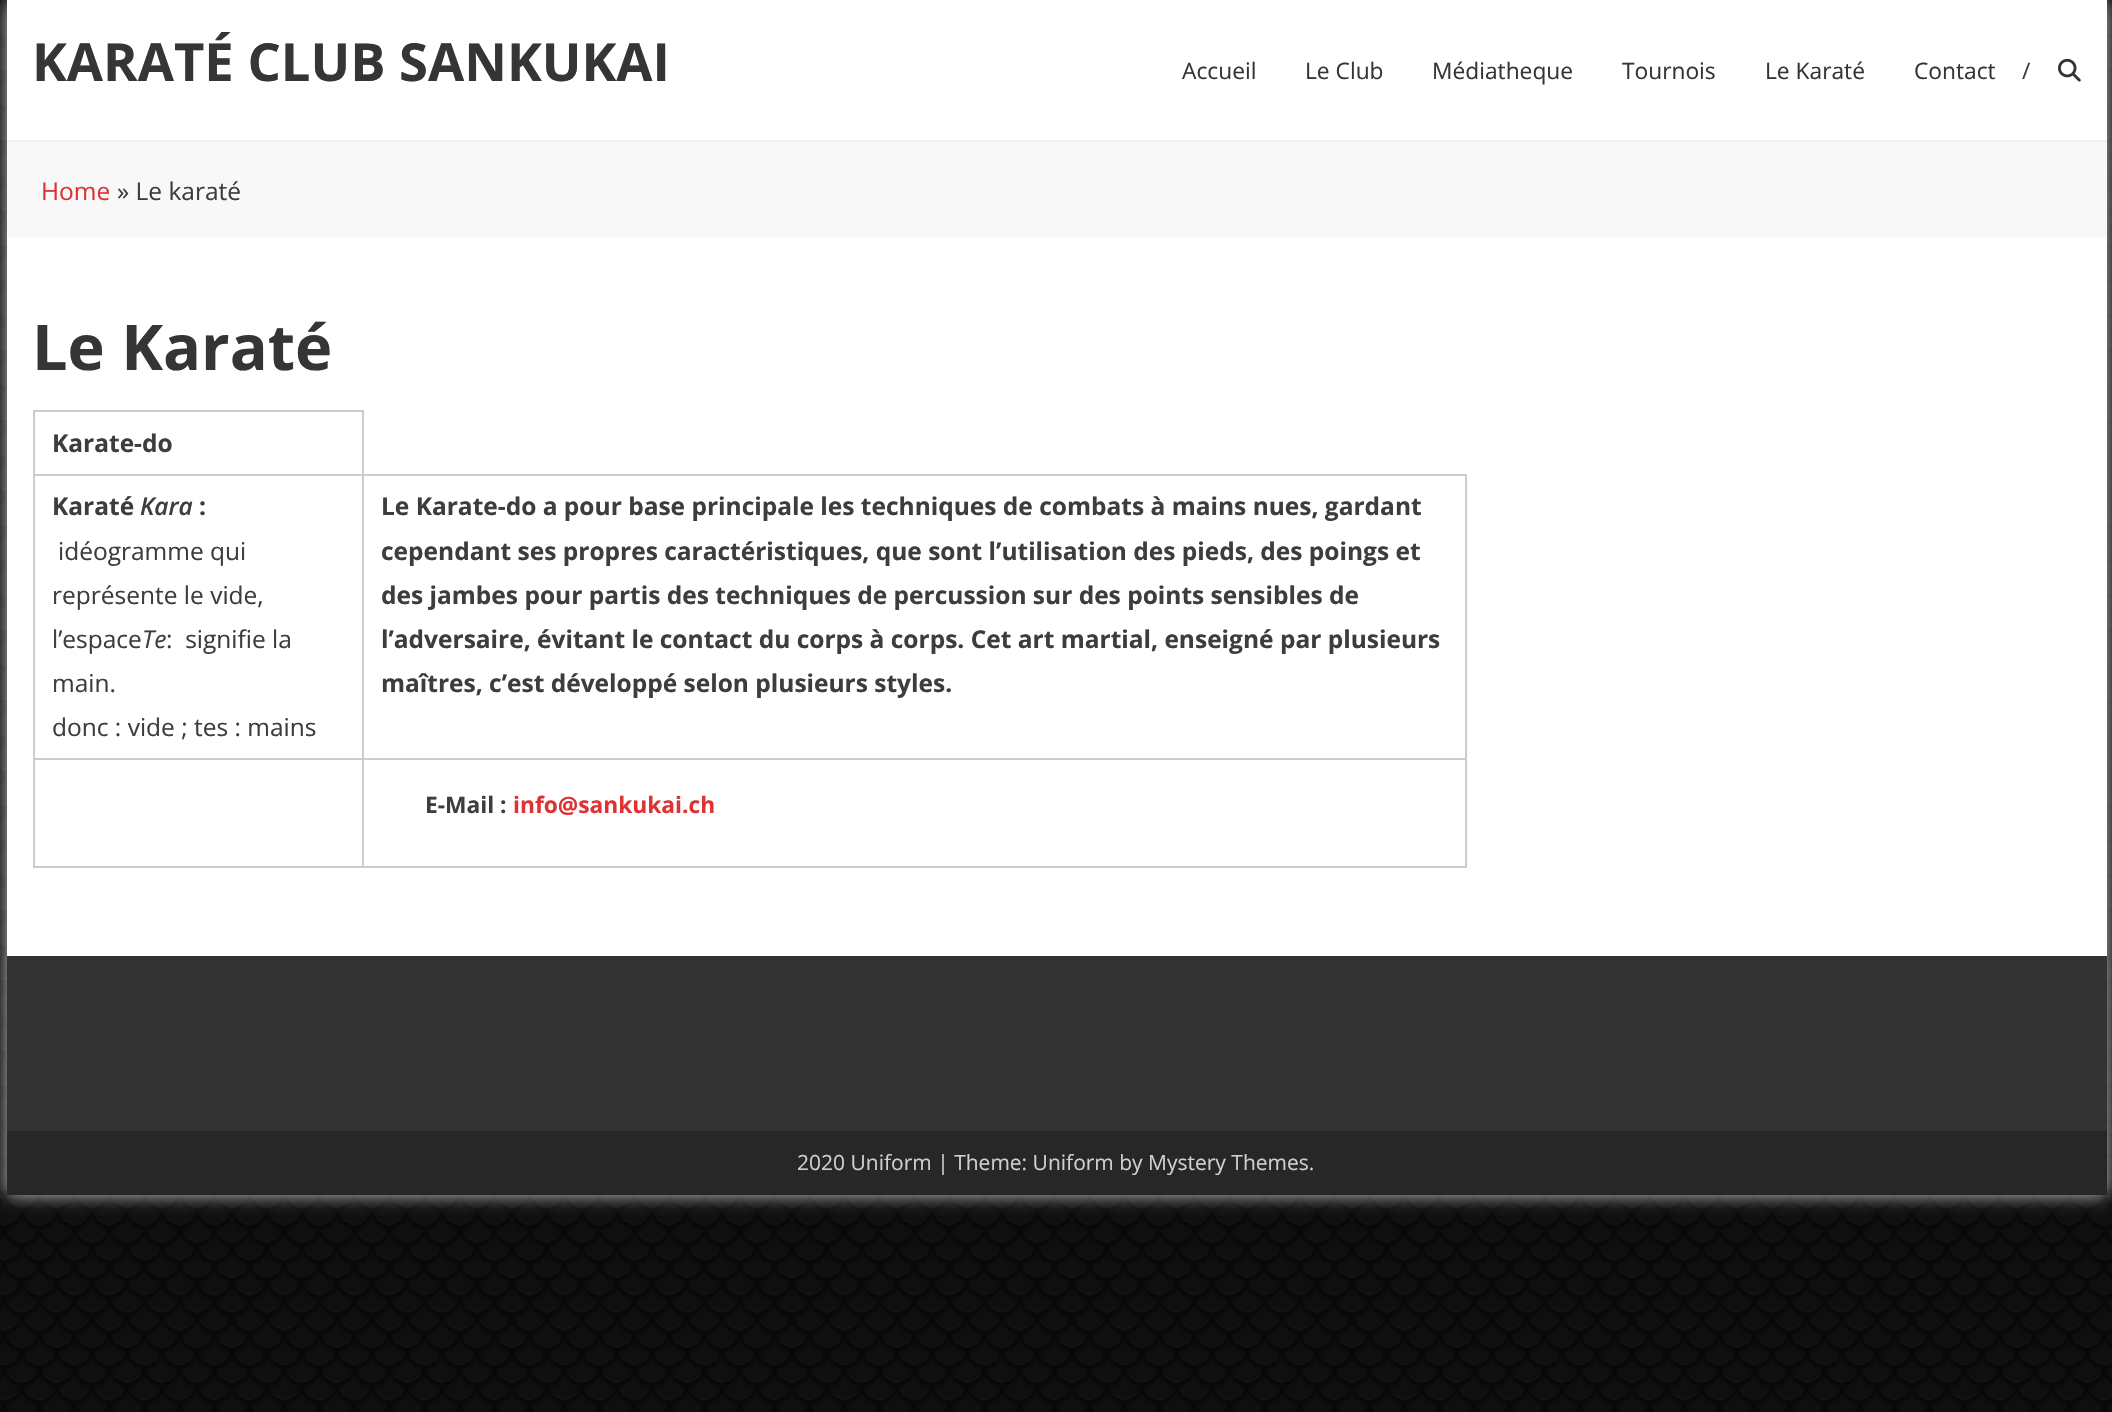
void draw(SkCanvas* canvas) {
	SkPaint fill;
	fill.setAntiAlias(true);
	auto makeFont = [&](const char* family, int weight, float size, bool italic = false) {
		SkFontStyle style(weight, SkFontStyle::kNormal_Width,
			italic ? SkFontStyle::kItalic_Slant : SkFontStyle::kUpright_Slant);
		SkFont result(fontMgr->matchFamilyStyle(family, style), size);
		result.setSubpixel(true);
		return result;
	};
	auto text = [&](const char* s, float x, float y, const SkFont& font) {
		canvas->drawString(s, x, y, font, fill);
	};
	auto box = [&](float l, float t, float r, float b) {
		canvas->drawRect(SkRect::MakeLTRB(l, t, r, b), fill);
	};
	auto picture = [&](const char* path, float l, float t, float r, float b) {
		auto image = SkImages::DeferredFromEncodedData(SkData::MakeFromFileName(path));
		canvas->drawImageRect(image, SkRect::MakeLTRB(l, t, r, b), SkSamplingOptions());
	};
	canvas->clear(0xFFFFFFFF);
	picture("image0.png", 0, 0, 2112, 1412);
	fill.setColor(0xFFC7C7C7);
	fill.setMaskFilter(SkMaskFilter::MakeBlur(kNormal_SkBlurStyle, 9));
	canvas->drawRect(SkRect::MakeLTRB(7, 0, 2107, 1195), fill);
	fill.setMaskFilter(nullptr);
	fill.setColor(0xFFFFFFFF);
	box(7, 0, 2107, 956);
	fill.setColor(0xFFF1F1F1);
	box(7, 140, 2107, 142);
	picture("image1.png", 2058, 58, 2081, 82);
	fill.setColor(0xFFF8F8F8);
	box(7, 142, 2107, 238);
	fill.setColor(0xFFCCCCCC);
	box(33, 410, 364, 412);
	box(362, 474, 1467, 476);
	box(1465, 474, 1467, 760);
	box(362, 758, 1467, 760);
	box(362, 474, 364, 760);
	box(33, 474, 364, 476);
	box(362, 410, 364, 476);
	box(33, 758, 364, 760);
	box(33, 474, 35, 760);
	box(33, 410, 35, 476);
	box(1465, 758, 1467, 868);
	box(362, 866, 1467, 868);
	box(362, 758, 364, 868);
	box(33, 866, 364, 868);
	box(33, 758, 35, 868);
	fill.setColor(0xFF333333);
	box(7, 956, 2107, 1131);
	fill.setColor(0xFF272727);
	box(7, 1131, 2107, 1195);
	auto font1 = makeFont("Open Sans", 700, 52.5f);
	fill.setColor(0xFF353535);
	text("KARATÉ CLUB SANKUKAI", 32, 81, font1);
	auto font2 = makeFont("Open Sans", 400, 22.75f);
	text("Accueil", 1182, 79, font2);
	text("Le Club", 1305, 79, font2);
	text("Médiatheque", 1432, 79, font2);
	text("Tournois", 1622, 79, font2);
	text("Le Karaté", 1765, 79, font2);
	text("Contact", 1914, 79, font2);
	fill.setColor(0xFF3D3D3D);
	text("/", 2022, 79, font2);
	auto font3 = makeFont("Open Sans", 400, 24.5f);
	fill.setColor(0xFFDD3333);
	text("Home", 41, 200, font3);
	fill.setColor(0xFF3D3D3D);
	text("» Le karaté", 117, 200, font3);
	auto font4 = makeFont("Open Sans", 700, 63);
	fill.setColor(0xFF353535);
	text("Le Karaté", 32, 370, font4);
	auto font5 = makeFont("Open Sans", 700, 24.5f);
	fill.setColor(0xFF3D3D3D);
	text("Karate-do", 52, 452, font5);
	text("Karaté", 52, 515, font5);
	auto font6 = makeFont("Open Sans", 600, 24.5f, true);
	text("Kara", 140, 515, font6);
	text(":", 199, 515, font5);
	text("idéogramme qui", 58, 560, font3);
	text("représente le vide,", 52, 604, font3);
	text("l’espace", 52, 648, font3);
	auto font7 = makeFont("Open Sans", 400, 24.5f, true);
	text("Te", 142, 648, font7);
	text(":  signifie la", 166, 648, font3);
	text("main.", 52, 692, font3);
	text("donc : vide ; tes : mains", 52, 736, font3);
	text("Le Karate-do a pour base principale les techniques de combats à mains nues, gardant", 381, 515, font5);
	text("cependant ses propres caractéristiques, que sont l’utilisation des pieds, des poings et", 381, 560, font5);
	text("des jambes pour partis des techniques de percussion sur des points sensibles de", 381, 604, font5);
	text("l’adversaire, évitant le contact du corps à corps. Cet art martial, enseigné par plusieurs", 381, 648, font5);
	text("maîtres, c’est développé selon plusieurs styles.", 381, 692, font5);
	auto font8 = makeFont("Open Sans", 700, 22.75f);
	text("E-Mail :", 425, 813, font8);
	fill.setColor(0xFFDD3333);
	text("info@sankukai.ch", 513, 813, font8);
	auto font9 = makeFont("Open Sans", 400, 21);
	fill.setColor(0xFFCFCFCF);
	text("2020 Uniform | Theme: Uniform by Mystery Themes.", 797, 1170, font9);
}
